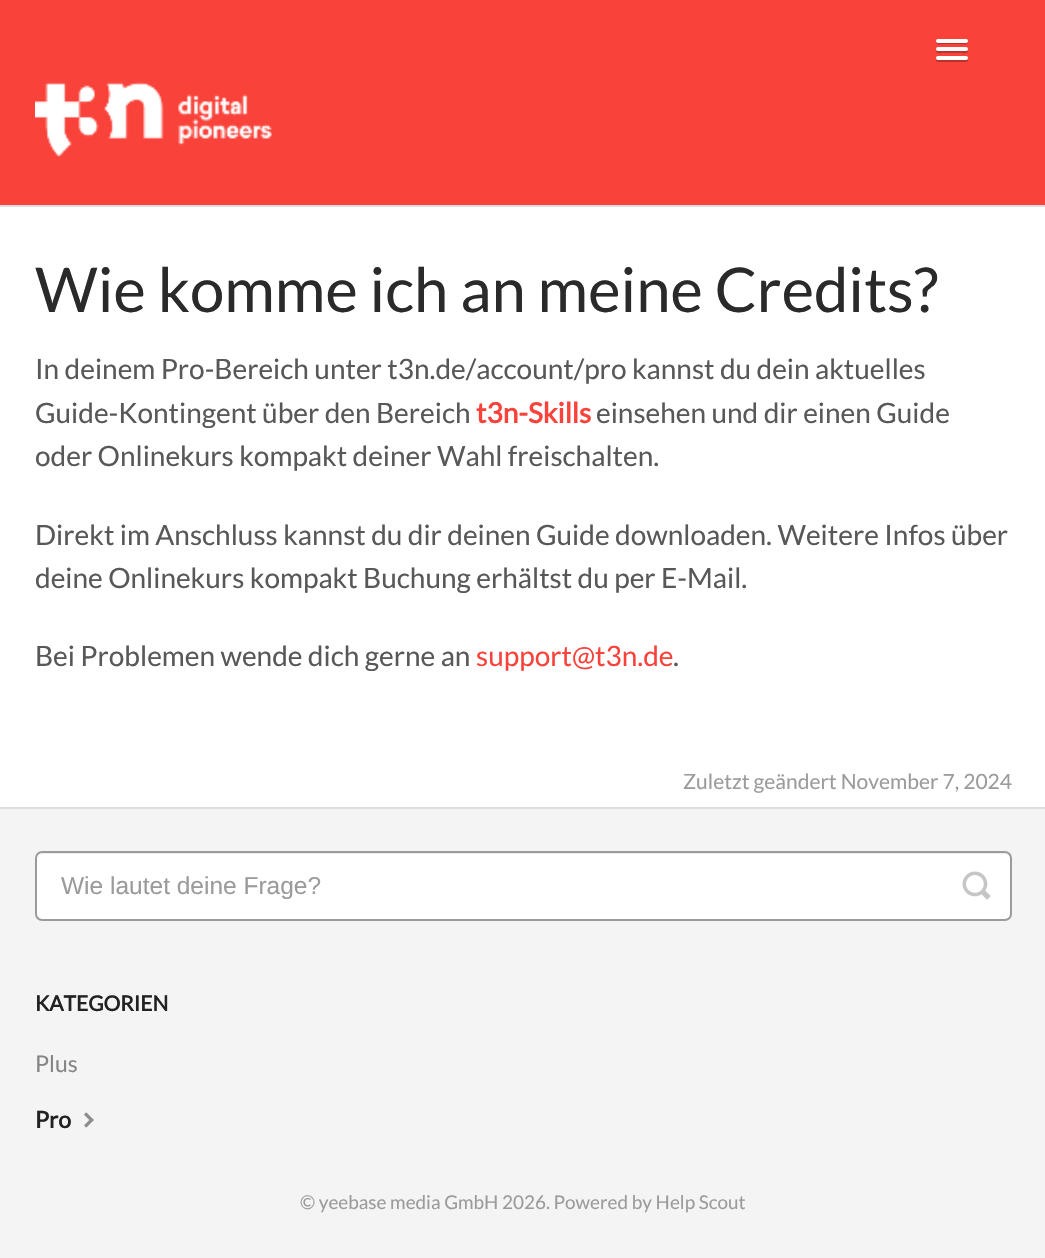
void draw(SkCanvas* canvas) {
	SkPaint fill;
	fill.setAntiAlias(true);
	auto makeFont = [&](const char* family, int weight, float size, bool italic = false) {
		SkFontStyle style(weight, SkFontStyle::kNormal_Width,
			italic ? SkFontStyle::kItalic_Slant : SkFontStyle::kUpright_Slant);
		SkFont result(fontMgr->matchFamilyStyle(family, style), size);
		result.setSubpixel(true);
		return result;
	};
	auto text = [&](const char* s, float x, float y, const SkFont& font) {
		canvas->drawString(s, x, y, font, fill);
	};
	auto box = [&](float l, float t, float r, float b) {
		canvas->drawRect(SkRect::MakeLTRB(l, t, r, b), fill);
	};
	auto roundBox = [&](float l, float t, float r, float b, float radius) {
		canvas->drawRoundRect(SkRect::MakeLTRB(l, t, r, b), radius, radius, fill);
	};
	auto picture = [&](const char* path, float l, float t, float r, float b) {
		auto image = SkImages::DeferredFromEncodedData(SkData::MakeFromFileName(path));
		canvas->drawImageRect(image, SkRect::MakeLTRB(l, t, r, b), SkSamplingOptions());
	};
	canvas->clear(0xFFF4F4F4);
	fill.setColor(0xFFF9423A);
	box(0, 0, 1045, 205);
	fill.setColor(0xFFBB322C);
	canvas->drawPath(SkPathBuilder().moveTo(936.5f, 41).lineTo(936, 42.5f).cubicTo(936.5f, 45, 941.5f, 44, 942.5f, 44).lineTo(961.5f, 44).cubicTo(962.5f, 44, 967.5f, 45, 968, 42.5f).lineTo(967.5f, 41).cubicTo(967.5f, 41.5f, 967, 42, 966, 42).lineTo(938, 42).cubicTo(937, 42, 936.5f, 41.5f, 936.5f, 41).close().detach(), fill);
	fill.setColor(0xFFFFFFFF);
	roundBox(936, 39, 968, 43, 2);
	fill.setColor(0xFFBB322C);
	canvas->drawPath(SkPathBuilder().moveTo(936.5f, 50).lineTo(936, 51.5f).cubicTo(936.5f, 54, 941.5f, 53, 942.5f, 53).lineTo(961.5f, 53).cubicTo(962.5f, 53, 967.5f, 54, 968, 51.5f).lineTo(967.5f, 50).cubicTo(967.5f, 50.5f, 966.5f, 51, 966, 51).lineTo(938, 51).cubicTo(937.5f, 51, 936.5f, 50.5f, 936.5f, 50).close().detach(), fill);
	fill.setColor(0xFFFFFFFF);
	roundBox(936, 47, 968, 51, 2);
	fill.setColor(0xFFBB322C);
	canvas->drawPath(SkPathBuilder().moveTo(936.5f, 58.5f).cubicTo(935.5f, 60, 936, 61.5f, 937.5f, 62).lineTo(966.5f, 62).cubicTo(968, 61.5f, 968.5f, 60, 967.5f, 58.5f).lineTo(966, 59.5f).lineTo(938, 59.5f).close().detach(), fill);
	fill.setColor(0xFFFFFFFF);
	roundBox(936, 56, 968, 60, 2);
	picture("image0.png", 35, 82, 272, 158);
	box(0, 207, 1045, 807);
	fill.setColor(0xFFDEDEDE);
	box(0, 205, 1045, 207);
	box(0, 807, 1045, 809);
	fill.setColor(0xFFFFFFFF);
	roundBox(35, 851, 1012, 921, 7);
	fill.setColor(0xFFECECEC);
	canvas->drawPath(SkPathBuilder().moveTo(42, 854).lineTo(1004, 854).cubicTo(1007, 854, 1010, 856, 1010, 859).lineTo(1010, 857).cubicTo(1010, 854, 1008, 852, 1005, 852).lineTo(42, 852).cubicTo(39, 852, 37, 854, 37, 857).lineTo(37, 859).cubicTo(37, 856, 39, 854, 42, 854).close().detach(), fill);
	fill.setStyle(SkPaint::kStroke_Style);
	fill.setStrokeWidth(2);
	fill.setColor(0xFF9B9B9B);
	canvas->drawRoundRect(SkRect::MakeLTRB(36, 852, 1011, 920), 6, 6, fill);
	picture("image1.png", 962, 871, 991, 900);
	picture("image2.png", 84, 1112, 94, 1128);
	auto font1 = makeFont("Lato", 400, 61.6f);
	fill.setStyle(SkPaint::kFill_Style);
	fill.setColor(0xFF2A2A2A);
	text("Wie komme ich an meine Credits?", 35, 312, font1);
	auto font2 = makeFont("Lato", 400, 28);
	fill.setColor(0xFF585858);
	text("In deinem Pro-Bereich unter t3n.de/account/pro kannst du dein aktuelles", 35, 379, font2);
	text("Guide-Kontingent über den Bereich", 35, 423, font2);
	auto font3 = makeFont("Lato", 700, 28);
	fill.setColor(0xFFF9423A);
	text("t3n-Skills", 476, 423, font3);
	fill.setColor(0xFF585858);
	text("einsehen und dir einen Guide", 596, 423, font2);
	text("oder Onlinekurs kompakt deiner Wahl freischalten.", 35, 466, font2);
	text("Direkt im Anschluss kannst du dir deinen Guide downloaden. Weitere Infos über", 35, 545, font2);
	text("deine Onlinekurs kompakt Buchung erhältst du per E-Mail.", 35, 588, font2);
	text("Bei Problemen wende dich gerne an", 35, 666, font2);
	fill.setColor(0xFFF9423A);
	text("support@t3n.de", 476, 666, font2);
	fill.setColor(0xFF585858);
	text(".", 673, 666, font2);
	auto font4 = makeFont("Lato", 400, 21);
	fill.setColor(0xFF9B9B9B);
	text("Zuletzt geändert November 7, 2024", 683, 789, font4);
	auto font5 = makeFont("Liberation Sans", 400, 24.5f);
	text("Wie lautet deine Frage?", 61, 894, font5);
	auto font6 = makeFont("Lato", 700, 21);
	fill.setColor(0xFF222222);
	text("KATEGORIEN", 35, 1011, font6);
	auto font7 = makeFont("Lato", 400, 23);
	fill.setColor(0xFF858585);
	text("Plus", 35, 1072, font7);
	auto font8 = makeFont("Lato", 700, 23);
	fill.setColor(0xFF222222);
	text("Pro", 35, 1128, font8);
	auto font9 = makeFont("Lato", 400, 18.9f);
	fill.setColor(0xFF9B9B9B);
	text("© yeebase media GmbH 2026. Powered by Help Scout", 300, 1209, font9);
}
